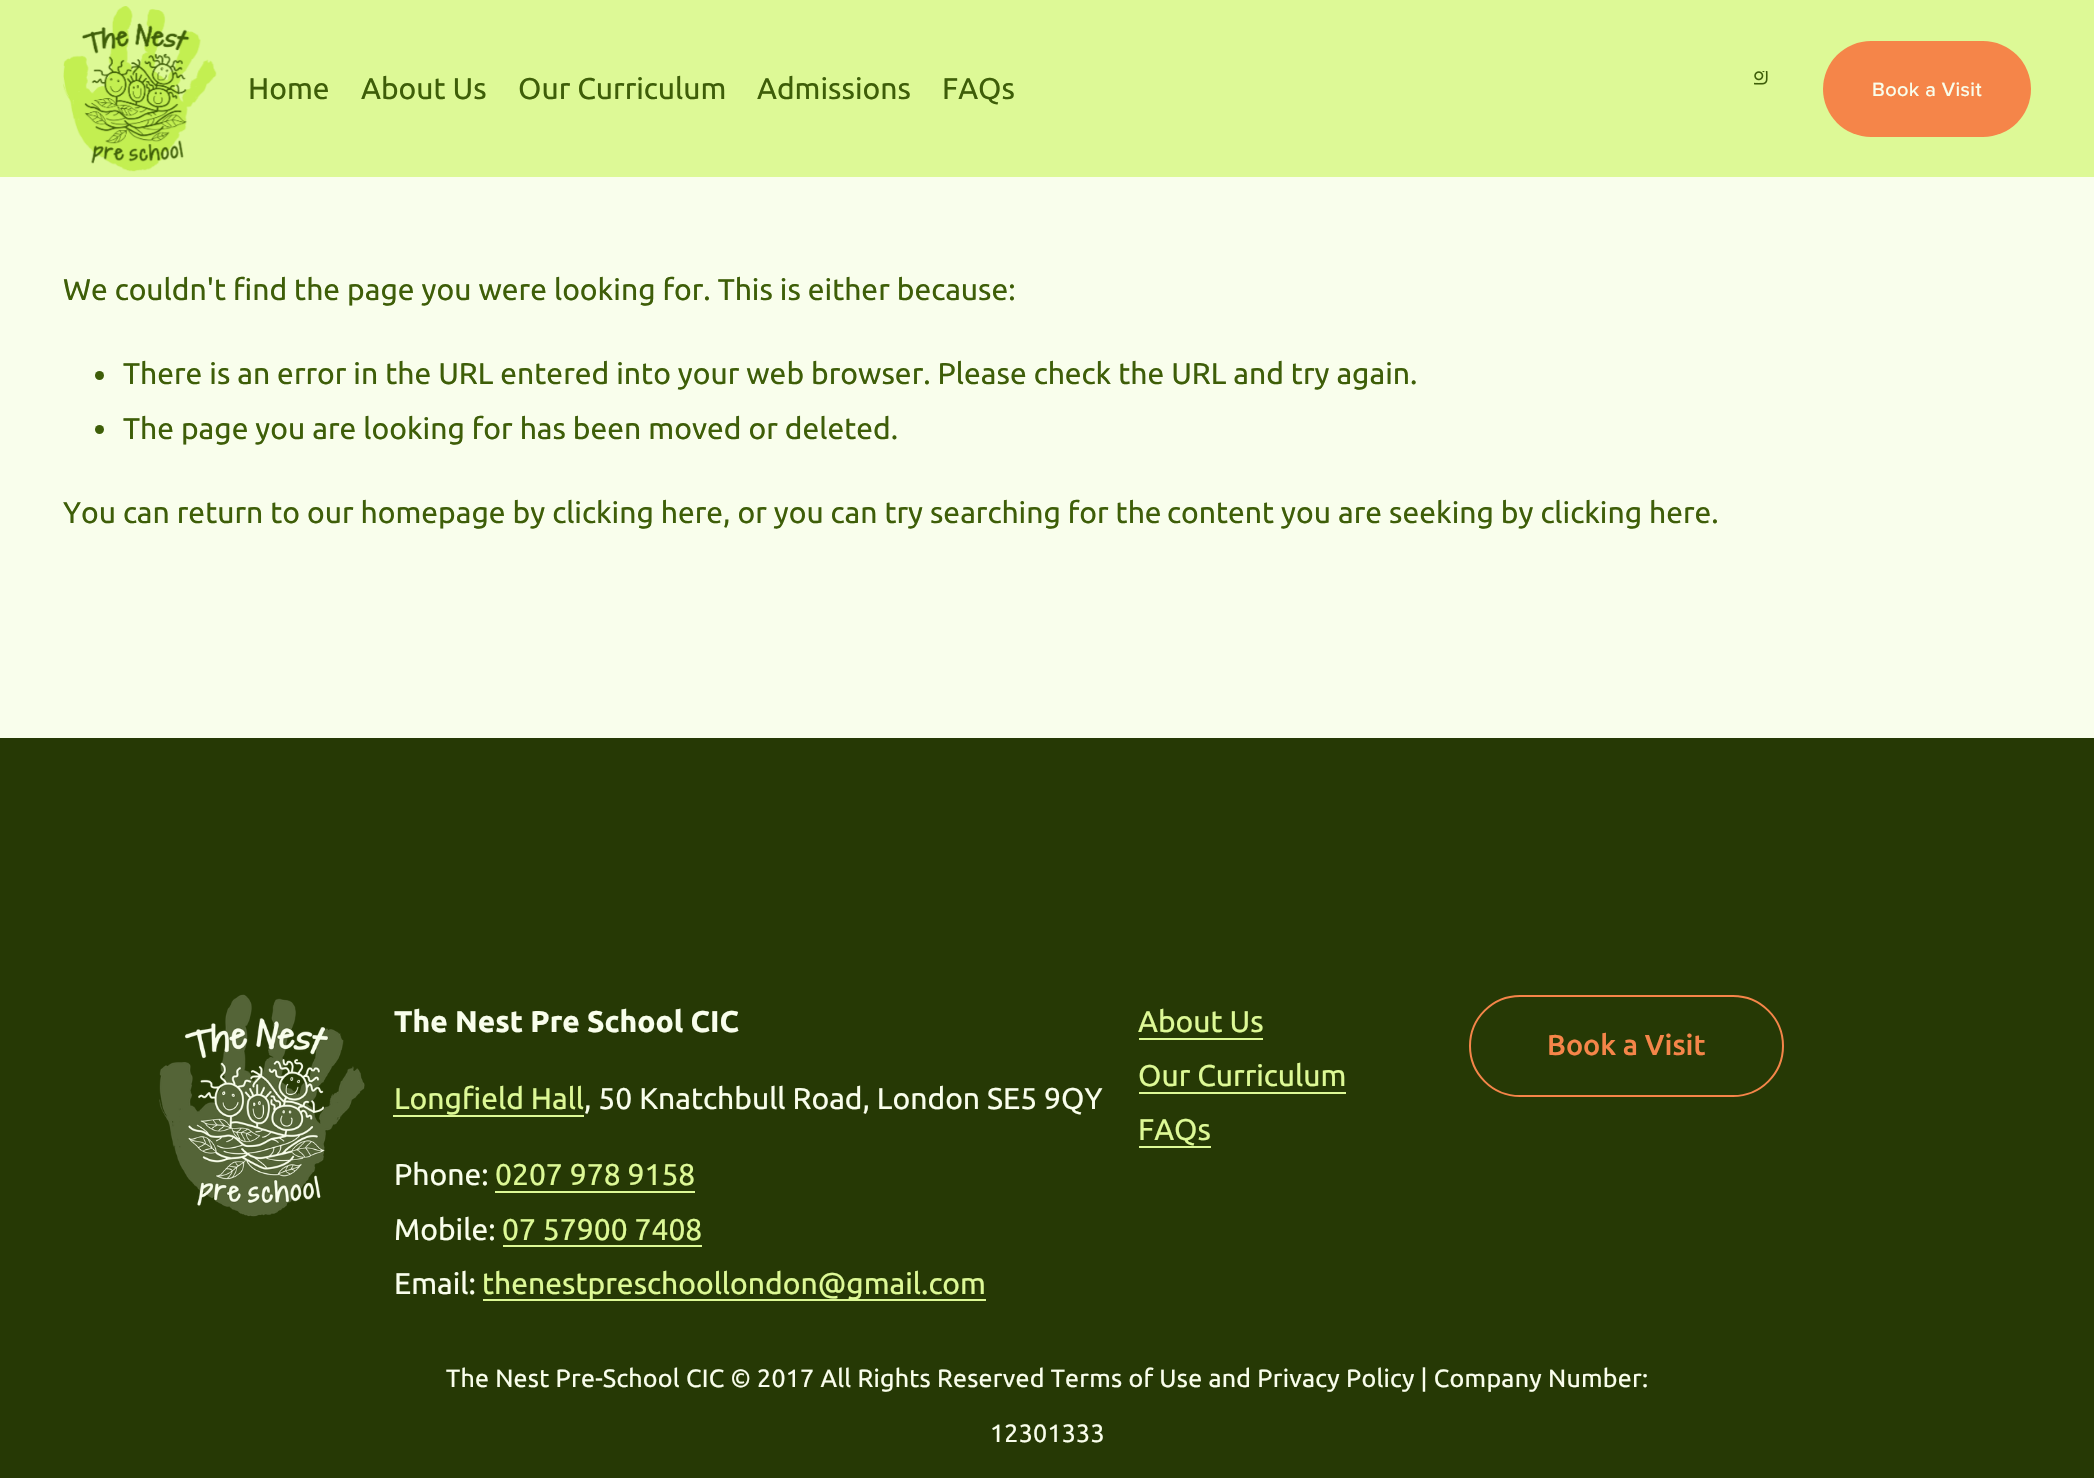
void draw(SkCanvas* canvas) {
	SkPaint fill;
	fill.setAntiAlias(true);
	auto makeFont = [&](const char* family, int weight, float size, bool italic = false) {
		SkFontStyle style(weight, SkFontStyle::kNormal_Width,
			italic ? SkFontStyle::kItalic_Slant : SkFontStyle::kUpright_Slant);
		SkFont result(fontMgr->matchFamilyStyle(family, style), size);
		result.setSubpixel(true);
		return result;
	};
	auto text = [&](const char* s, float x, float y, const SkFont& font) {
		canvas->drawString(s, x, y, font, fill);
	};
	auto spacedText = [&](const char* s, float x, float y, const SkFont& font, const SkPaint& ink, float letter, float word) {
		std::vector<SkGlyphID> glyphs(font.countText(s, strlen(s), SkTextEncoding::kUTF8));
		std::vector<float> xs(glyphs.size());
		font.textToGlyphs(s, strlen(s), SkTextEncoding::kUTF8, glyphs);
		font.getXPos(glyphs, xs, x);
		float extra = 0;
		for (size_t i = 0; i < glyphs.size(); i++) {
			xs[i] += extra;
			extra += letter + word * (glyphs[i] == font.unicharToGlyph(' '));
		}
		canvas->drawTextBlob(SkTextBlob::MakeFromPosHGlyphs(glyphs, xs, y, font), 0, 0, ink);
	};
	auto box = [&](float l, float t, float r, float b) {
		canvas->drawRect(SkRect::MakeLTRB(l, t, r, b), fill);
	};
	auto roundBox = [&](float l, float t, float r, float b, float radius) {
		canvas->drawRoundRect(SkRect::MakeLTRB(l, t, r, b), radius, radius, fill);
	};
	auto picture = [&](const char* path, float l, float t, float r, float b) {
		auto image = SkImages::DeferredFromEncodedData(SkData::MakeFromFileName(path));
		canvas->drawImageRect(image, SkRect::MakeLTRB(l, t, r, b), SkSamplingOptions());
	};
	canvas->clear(0xFFF9FEEC);
	fill.setColor(0xFFDDF996);
	box(0, 0, 2094, 177);
	picture("image0.png", 63, 6, 217, 172);
	picture("image1.png", 1754, 71, 1768, 85);
	fill.setColor(0xFFF58549);
	roundBox(1823, 41, 2031, 137, 48);
	fill.setColor(0xFF3E5E08);
	canvas->drawCircle(99.5f, 375.5f, 4.5f, fill);
	canvas->drawCircle(99.5f, 429.5f, 4.5f, fill);
	fill.setColor(0xFF263905);
	box(0, 738, 2094, 1478);
	picture("image2.png", 159, 994, 365, 1217);
	fill.setColor(0xFFDDF996);
	box(393, 1115, 584, 1117);
	box(495, 1191, 695, 1193);
	box(503, 1245, 702, 1247);
	box(483, 1299, 986, 1301);
	box(1139, 1038, 1263, 1040);
	box(1139, 1092, 1346, 1094);
	box(1139, 1146, 1211, 1148);
	fill.setStyle(SkPaint::kStroke_Style);
	fill.setStrokeWidth(2);
	fill.setColor(0xFFF58549);
	canvas->drawRoundRect(SkRect::MakeLTRB(1470, 996, 1783, 1096), 50, 50, fill);
	auto font1 = makeFont("Ubuntu", 400, 30.05f);
	fill.setStyle(SkPaint::kFill_Style);
	fill.setColor(0xFF3E5E08);
	text("Home", 248, 99, font1);
	text("About Us", 361, 99, font1);
	text("Our Curriculum", 518, 99, font1);
	text("Admissions", 757, 99, font1);
	text("FAQs", 942, 99, font1);
	auto font2 = makeFont("Proxima Nova", 500, 20);
	fill.setColor(0xFFF9FEEC);
	spacedText("Book a Visit", 1872, 96, font2, fill, 0.4f, 0);
	fill.setColor(0xFF3E5E08);
	text("We couldn't find the page you were looking for. This is either because:", 63, 300, font1);
	text("There is an error in the URL entered into your web browser. Please check the URL and try again.", 123, 384, font1);
	text("The page you are looking for has been moved or deleted.", 123, 439, font1);
	text("You can return to our homepage by clicking here, or you can try searching for the", 63, 523, font1);
	text("content you are seeking by clicking here.", 1167, 523, font1);
	auto font3 = makeFont("Ubuntu", 700, 30.05f);
	fill.setColor(0xFFF9FEEC);
	text("The Nest Pre School CIC", 394, 1032, font3);
	fill.setColor(0xFFDDF996);
	text("Longfield Hall", 394, 1109, font1);
	fill.setColor(0xFFF9FEEC);
	text(", 50 Knatchbull Road, London SE5 9QY", 584, 1109, font1);
	text("Phone:", 394, 1185, font1);
	fill.setColor(0xFFDDF996);
	text("0207 978 9158", 495, 1185, font1);
	fill.setColor(0xFFF9FEEC);
	text("Mobile:", 394, 1240, font1);
	fill.setColor(0xFFDDF996);
	text("07 57900 7408", 502, 1240, font1);
	fill.setColor(0xFFF9FEEC);
	text("Email:", 394, 1294, font1);
	fill.setColor(0xFFDDF996);
	text("thenestpreschoollondon@gmail.com", 482, 1294, font1);
	text("About Us", 1138, 1032, font1);
	text("Our Curriculum", 1138, 1086, font1);
	text("FAQs", 1138, 1140, font1);
	auto font4 = makeFont("Ubuntu", 500, 28.75f);
	fill.setColor(0xFFF58549);
	text("Book a Visit", 1547, 1055, font4);
	auto font5 = makeFont("Ubuntu", 400, 25);
	fill.setColor(0xFFF9FEEC);
	spacedText("The Nest Pre-School CIC © 2017 All Rights Reserved Terms of Use and Privacy Policy | Company Number:", 446, 1387, font5, fill, 0.25f, 0);
	spacedText("12301333", 990, 1442, font5, fill, 0.25f, 0);
}
